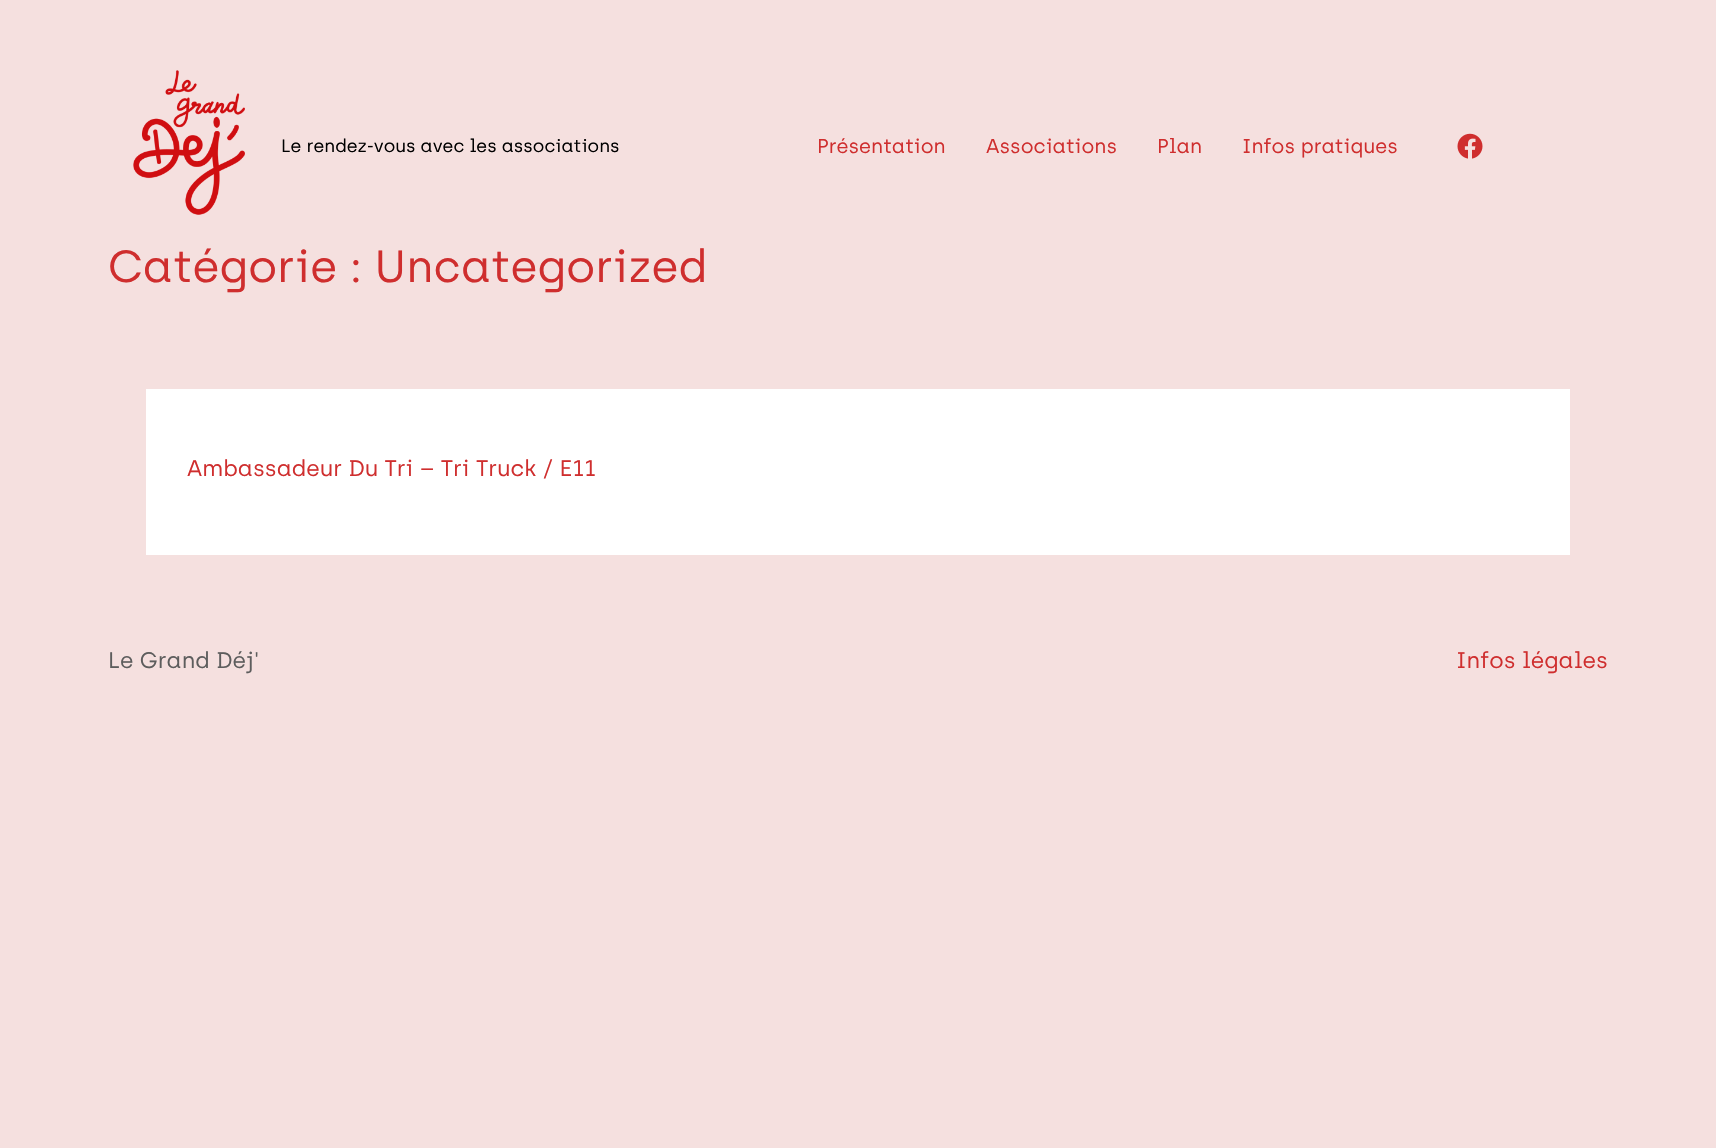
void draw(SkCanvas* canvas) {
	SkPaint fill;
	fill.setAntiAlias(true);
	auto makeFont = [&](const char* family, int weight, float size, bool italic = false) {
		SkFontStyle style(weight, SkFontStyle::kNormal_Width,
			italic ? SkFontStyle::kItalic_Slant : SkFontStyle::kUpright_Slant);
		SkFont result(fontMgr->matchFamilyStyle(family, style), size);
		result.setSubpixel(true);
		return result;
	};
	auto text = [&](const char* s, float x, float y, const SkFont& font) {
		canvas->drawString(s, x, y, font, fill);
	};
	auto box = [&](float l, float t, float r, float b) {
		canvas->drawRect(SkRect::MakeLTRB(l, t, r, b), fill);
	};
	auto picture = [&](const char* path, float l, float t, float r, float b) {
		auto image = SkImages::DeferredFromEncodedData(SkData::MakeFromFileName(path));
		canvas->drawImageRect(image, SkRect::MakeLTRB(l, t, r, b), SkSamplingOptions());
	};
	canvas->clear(0xFFF5E0DF);
	picture("image0.png", 133, 70, 245, 215);
	picture("image1.png", 1457, 133, 1483, 159);
	fill.setColor(0xFFFFFFFF);
	box(146, 389, 1570, 555);
	auto font1 = makeFont("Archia", 400, 18);
	fill.setColor(0xFF000000);
	text("Le rendez-vous avec les associations", 281, 152, font1);
	auto font2 = makeFont("Archia", 400, 20);
	fill.setColor(0xFFCF2E2E);
	text("Présentation", 817, 153, font2);
	text("Associations", 986, 153, font2);
	text("Plan", 1157, 153, font2);
	text("Infos pratiques", 1242, 153, font2);
	auto font3 = makeFont("Archia", 400, 45);
	text("Catégorie : Uncategorized", 108, 282, font3);
	auto font4 = makeFont("Archia", 400, 22.5f);
	text("Ambassadeur Du Tri – Tri Truck / E11", 187, 476, font4);
	fill.setColor(0xFF5D5D5D);
	text("Le Grand Déj'", 108, 668, font4);
	fill.setColor(0xFFCF2E2E);
	text("Infos légales", 1456, 668, font4);
}
